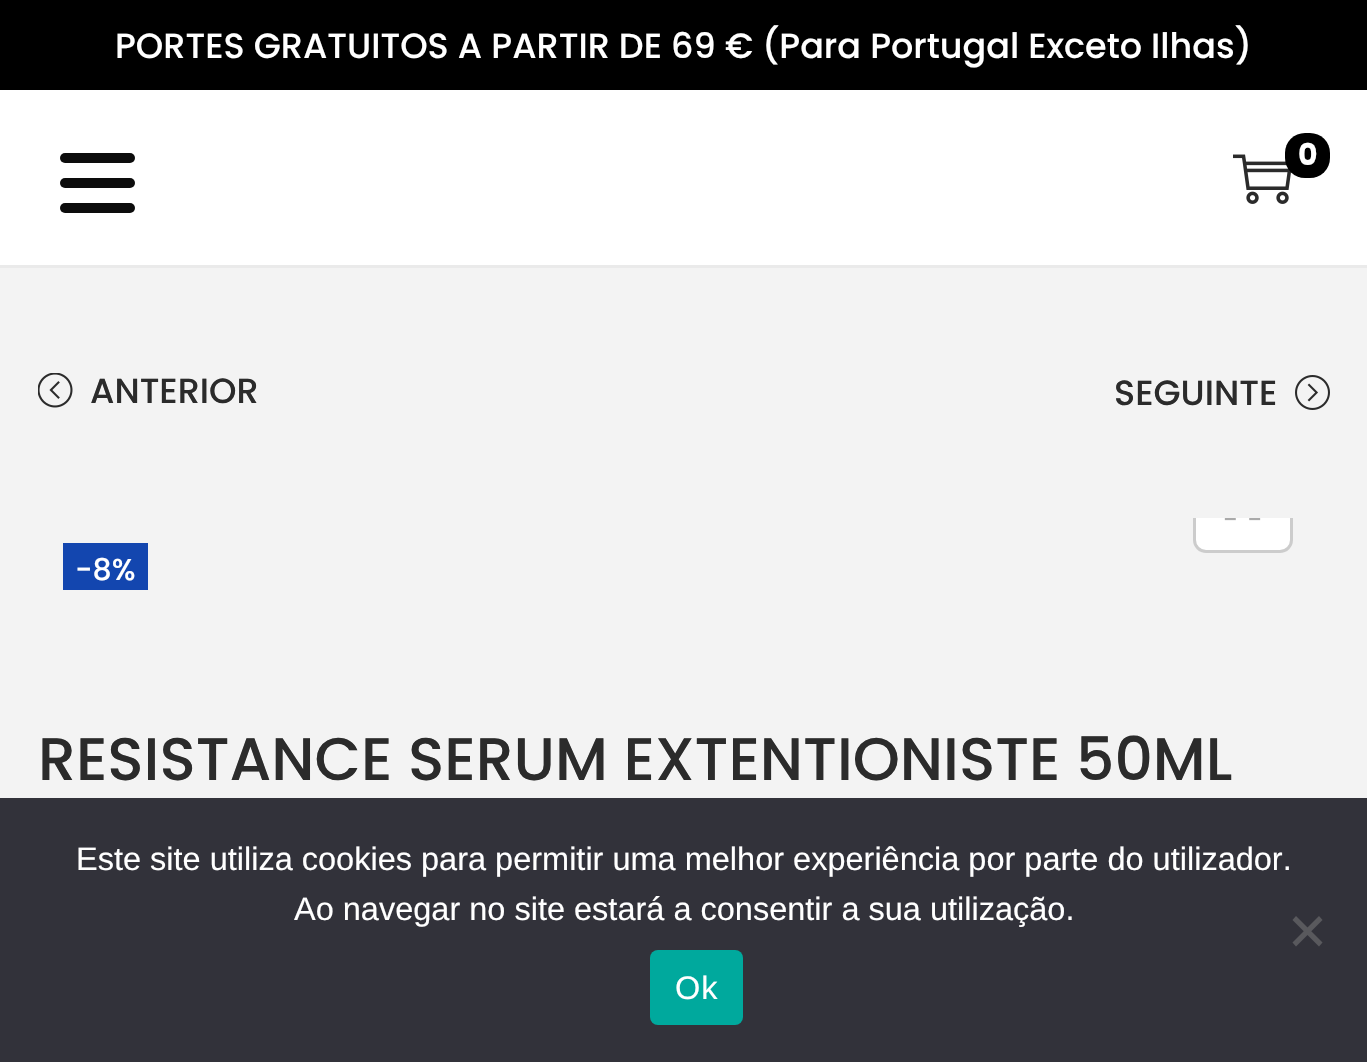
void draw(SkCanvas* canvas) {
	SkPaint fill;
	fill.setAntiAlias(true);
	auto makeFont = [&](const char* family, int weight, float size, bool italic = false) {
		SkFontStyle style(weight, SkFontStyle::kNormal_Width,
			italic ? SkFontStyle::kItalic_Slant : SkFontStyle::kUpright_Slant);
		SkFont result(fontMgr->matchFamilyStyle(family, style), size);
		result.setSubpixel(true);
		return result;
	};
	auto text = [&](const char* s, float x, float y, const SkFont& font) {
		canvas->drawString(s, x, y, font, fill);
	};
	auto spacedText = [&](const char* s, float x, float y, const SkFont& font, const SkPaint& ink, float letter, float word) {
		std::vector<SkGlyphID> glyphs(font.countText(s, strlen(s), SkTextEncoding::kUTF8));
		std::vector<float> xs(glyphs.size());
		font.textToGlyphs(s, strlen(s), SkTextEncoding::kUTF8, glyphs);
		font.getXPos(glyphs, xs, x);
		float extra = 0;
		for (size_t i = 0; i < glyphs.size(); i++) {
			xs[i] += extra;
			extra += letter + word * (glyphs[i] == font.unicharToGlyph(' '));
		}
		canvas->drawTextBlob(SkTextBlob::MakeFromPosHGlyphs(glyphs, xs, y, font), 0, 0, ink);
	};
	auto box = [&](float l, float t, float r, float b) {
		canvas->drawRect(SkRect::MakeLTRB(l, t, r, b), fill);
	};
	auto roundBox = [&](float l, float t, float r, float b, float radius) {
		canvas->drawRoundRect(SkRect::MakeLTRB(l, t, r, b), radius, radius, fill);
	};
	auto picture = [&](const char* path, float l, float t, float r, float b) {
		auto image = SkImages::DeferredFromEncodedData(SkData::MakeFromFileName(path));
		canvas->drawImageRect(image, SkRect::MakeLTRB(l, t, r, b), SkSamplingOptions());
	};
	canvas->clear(0xFFFFFFFF);
	fill.setColor(0xFF000000);
	box(0, 0, 1367, 90);
	fill.setColor(0xFF0C0C0C);
	roundBox(60, 153, 135, 163, 5);
	roundBox(60, 178, 135, 188, 5);
	roundBox(60, 203, 135, 213, 5);
	fill.setColor(0xFFEAEAEA);
	box(0, 265, 1367, 268);
	picture("image0.png", 1233, 154, 1291, 204);
	fill.setColor(0xFF000000);
	roundBox(1285, 133, 1330, 178, 20);
	fill.setColor(0xFFF3F3F3);
	box(0, 268, 1367, 798);
	picture("image1.png", 38, 373, 73, 408);
	picture("image2.png", 1295, 375, 1330, 410);
	fill.setColor(0xFFFFFFFF);
	canvas->drawPath(SkPathBuilder().moveTo(1193, 518).lineTo(1293, 518).lineTo(1293, 540).cubicTo(1293, 547, 1287, 553, 1280, 553).lineTo(1206, 553).cubicTo(1199, 553, 1193, 547, 1193, 540).close().detach(), fill);
	canvas->save();
	canvas->clipRect(SkRect::MakeLTRB(38, 518, 1330, 590));
	fill.setStyle(SkPaint::kStroke_Style);
	fill.setStrokeWidth(3);
	fill.setColor(0xFFCCCCCC);
	canvas->drawRoundRect(SkRect::MakeLTRB(1194.5f, 454.5f, 1291.5f, 551.5f), 11.5f, 11.5f, fill);
	canvas->restore();
	picture("image3.png", 1224, 518, 1261, 521);
	fill.setStyle(SkPaint::kFill_Style);
	fill.setColor(0xFF1346AF);
	box(63, 543, 148, 590);
	fill.setColor(0xFF32323A);
	box(0, 798, 1367, 1062);
	fill.setColor(0xFF59595D);
	canvas->drawPath(SkPathBuilder().moveTo(1319, 916).lineTo(1322.5f, 920).lineTo(1296, 946.5f).lineTo(1292.5f, 942.5f).close().detach(), fill);
	canvas->drawPath(SkPathBuilder().moveTo(1292.5f, 920).lineTo(1296, 916).lineTo(1322.5f, 942.5f).lineTo(1319, 946.5f).close().detach(), fill);
	fill.setColor(0xFF00A99D);
	roundBox(650, 950, 743, 1025, 8);
	auto font1 = makeFont("Poppins", 500, 35);
	fill.setColor(0xFFFFFFFF);
	text("PORTES GRATUITOS A PARTIR DE 69 € (Para Portugal Exceto Ilhas)", 115, 58, font1);
	auto font2 = makeFont("Poppins", 700, 30);
	text("0", 1298, 165, font2);
	fill.setColor(0xFF2B2B2B);
	text("ANTERIOR", 90, 403, font1);
	text("SEGUINTE", 1114, 405, font1);
	auto font3 = makeFont("Poppins", 500, 30);
	fill.setColor(0xFFFFFFFF);
	text("-8%", 75, 580, font3);
	auto font4 = makeFont("Poppins", 500, 60);
	fill.setColor(0xFF2B2B2B);
	text("RESISTANCE SERUM EXTENTIONISTE 50ML", 38, 780, font4);
	auto font5 = makeFont("Liberation Sans", 400, 32.5f);
	fill.setColor(0xFFFFFFFF);
	text("Este site utiliza cookies para permitir uma melhor experiência por parte do utilizador.", 76, 870, font5);
	text("Ao navegar no site estará a consentir a sua utilização.", 294, 920, font5);
	spacedText("Ok", 675, 999, font5, fill, 1, 0);
}
